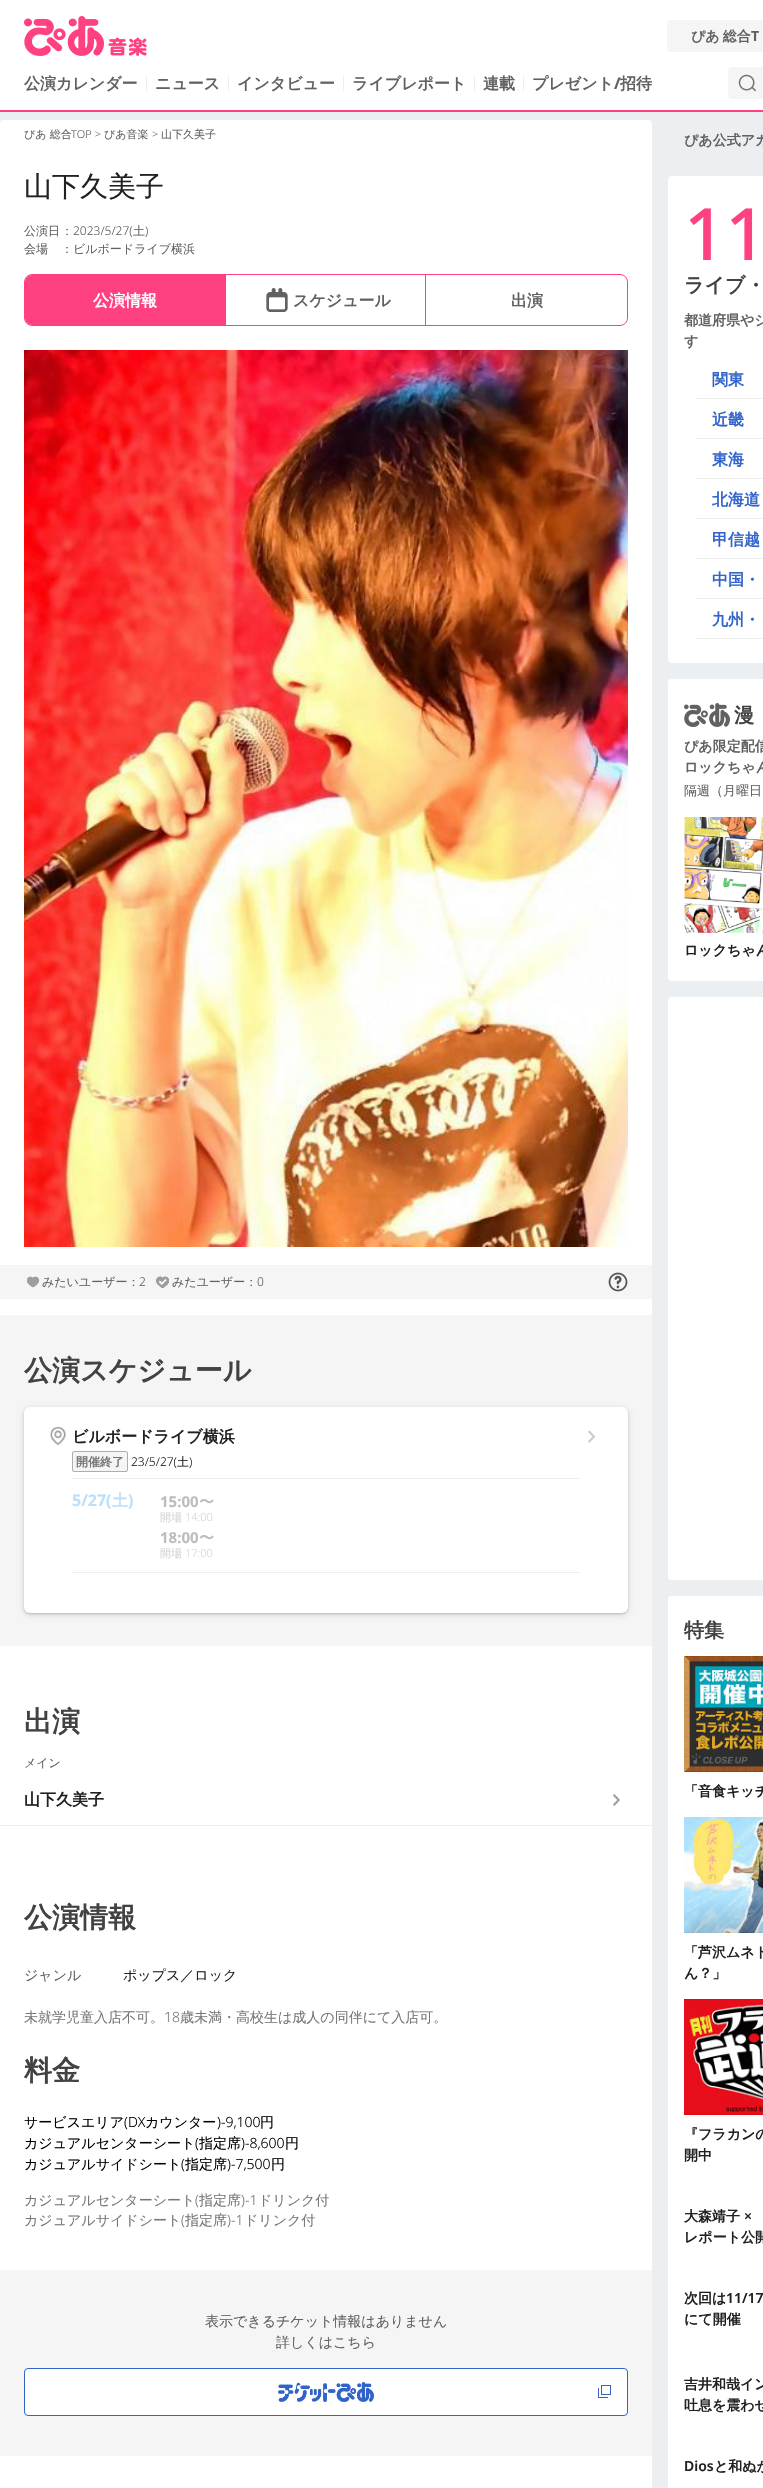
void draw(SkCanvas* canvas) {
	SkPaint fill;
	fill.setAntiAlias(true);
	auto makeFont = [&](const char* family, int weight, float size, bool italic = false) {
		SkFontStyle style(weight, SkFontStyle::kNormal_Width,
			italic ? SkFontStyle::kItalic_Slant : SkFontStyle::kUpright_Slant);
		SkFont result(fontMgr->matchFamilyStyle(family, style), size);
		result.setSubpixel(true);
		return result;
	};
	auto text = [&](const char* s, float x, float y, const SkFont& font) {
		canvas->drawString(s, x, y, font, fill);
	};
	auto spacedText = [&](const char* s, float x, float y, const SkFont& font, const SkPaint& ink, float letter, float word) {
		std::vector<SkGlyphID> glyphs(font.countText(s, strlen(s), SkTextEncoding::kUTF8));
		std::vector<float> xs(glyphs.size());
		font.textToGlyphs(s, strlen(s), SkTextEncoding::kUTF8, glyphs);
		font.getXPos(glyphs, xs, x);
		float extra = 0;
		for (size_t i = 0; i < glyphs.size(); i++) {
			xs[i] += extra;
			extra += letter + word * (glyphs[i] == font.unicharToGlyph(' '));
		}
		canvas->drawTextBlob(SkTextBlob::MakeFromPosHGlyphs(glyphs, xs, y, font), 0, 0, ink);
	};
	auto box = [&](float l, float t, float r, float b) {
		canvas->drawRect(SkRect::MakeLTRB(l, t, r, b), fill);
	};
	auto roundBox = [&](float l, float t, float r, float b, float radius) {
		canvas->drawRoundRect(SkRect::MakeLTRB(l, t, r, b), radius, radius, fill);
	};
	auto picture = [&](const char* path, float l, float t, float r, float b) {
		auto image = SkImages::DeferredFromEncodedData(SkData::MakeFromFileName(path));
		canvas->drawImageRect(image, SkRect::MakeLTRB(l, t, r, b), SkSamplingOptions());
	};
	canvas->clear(0xFFECEFF1);
	fill.setColor(0xFFFFFFFF);
	box(0, 0, 763, 110);
	fill.setColor(0xFFFF4081);
	box(0, 110, 763, 112);
	picture("image0.png", 24, 16, 147, 56);
	fill.setColor(0xFFF5F5F5);
	roundBox(667, 20, 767, 52, 4);
	fill.setColor(0xFFEEEEEE);
	box(146, 75, 147, 91);
	box(228, 75, 229, 91);
	box(343, 75, 344, 91);
	box(474, 75, 475, 91);
	box(523, 75, 524, 91);
	fill.setColor(0xFFF5F5F5);
	roundBox(728, 67, 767, 99, 4);
	picture("image1.png", 738, 74, 756, 92);
	fill.setColor(0xFFFFFFFF);
	roundBox(0, 120, 652, 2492, 4);
	fill.setStyle(SkPaint::kStroke_Style);
	fill.setStrokeWidth(1);
	fill.setColor(0xFFFF4081);
	canvas->drawRoundRect(SkRect::MakeLTRB(24.5f, 274.5f, 627.5f, 325.5f), 7.5f, 7.5f, fill);
	fill.setStyle(SkPaint::kFill_Style);
	canvas->drawPath(SkPathBuilder().moveTo(32, 275).lineTo(226, 275).lineTo(226, 325).lineTo(32, 325).cubicTo(28, 325, 25, 322, 25, 318).lineTo(25, 282).cubicTo(25, 278, 28, 275, 32, 275).close().detach(), fill);
	box(425, 275, 426, 325);
	picture("image2.png", 266, 288, 288, 312);
	picture("image3.png", 24, 350, 628, 1247);
	fill.setColor(0xFFF5F5F5);
	box(0, 1265, 652, 1299);
	picture("image4.png", 27, 1276, 39, 1288);
	picture("image5.png", 156, 1276, 169, 1288);
	picture("image6.png", 608, 1272, 628, 1292);
	box(0, 1315, 652, 1646);
	fill.setColor(0x1F000000);
	fill.setMaskFilter(SkMaskFilter::MakeBlur(kNormal_SkBlurStyle, 3));
	canvas->drawRoundRect(SkRect::MakeLTRB(24, 1409, 628, 1615), 6, 6, fill);
	fill.setMaskFilter(nullptr);
	fill.setColor(0x29000000);
	fill.setMaskFilter(SkMaskFilter::MakeBlur(kNormal_SkBlurStyle, 1));
	canvas->drawRoundRect(SkRect::MakeLTRB(24, 1408, 628, 1614), 6, 6, fill);
	fill.setMaskFilter(nullptr);
	fill.setColor(0xFFFFFFFF);
	roundBox(24, 1407, 628, 1613, 6);
	picture("image7.png", 50, 1426, 66, 1446);
	picture("image8.png", 588, 1430, 596, 1443);
	fill.setColor(0xFFF5F5F5);
	canvas->drawRoundRect(SkRect::MakeLTRB(72.5f, 1451.5f, 127.5f, 1471.5f), 1.5f, 1.5f, fill);
	fill.setStyle(SkPaint::kStroke_Style);
	fill.setColor(0xFFAEAEAE);
	canvas->drawRoundRect(SkRect::MakeLTRB(72.5f, 1451.5f, 127.5f, 1471.5f), 1.5f, 1.5f, fill);
	fill.setStyle(SkPaint::kFill_Style);
	fill.setColor(0xFFEEEEEE);
	box(72, 1478, 580, 1479);
	box(72, 1572, 580, 1573);
	box(0, 1825, 652, 1826);
	picture("image9.png", 613, 1794, 620, 1806);
	fill.setColor(0xFFF5F5F5);
	box(0, 2270, 652, 2456);
	fill.setColor(0xFFFFFFFF);
	canvas->drawRoundRect(SkRect::MakeLTRB(24.5f, 2368.5f, 627.5f, 2415.5f), 3.5f, 3.5f, fill);
	fill.setStyle(SkPaint::kStroke_Style);
	fill.setColor(0xFF3264CB);
	canvas->drawRoundRect(SkRect::MakeLTRB(24.5f, 2368.5f, 627.5f, 2415.5f), 3.5f, 3.5f, fill);
	picture("image10.png", 278, 2382, 374, 2402);
	picture("image11.png", 598, 2385, 611, 2398);
	fill.setStyle(SkPaint::kFill_Style);
	fill.setColor(0xFFFFFFFF);
	roundBox(668, 176, 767, 663, 4);
	fill.setColor(0xFFEEEEEE);
	box(696, 398, 763, 399);
	box(696, 438, 763, 439);
	box(696, 478, 763, 479);
	box(696, 518, 763, 519);
	box(696, 558, 763, 559);
	box(696, 598, 763, 599);
	box(696, 638, 763, 639);
	fill.setColor(0xFFFFFFFF);
	roundBox(668, 679, 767, 981, 4);
	picture("image12.png", 684, 703, 730, 727);
	picture("image13.png", 684, 817, 763, 933);
	roundBox(668, 997, 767, 1580, 4);
	roundBox(668, 1596, 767, 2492, 4);
	picture("image14.png", 684, 1656, 763, 1772);
	picture("image15.png", 684, 1817, 763, 1933);
	picture("image16.png", 684, 1999, 763, 2115);
	auto font1 = makeFont("WenQuanYi Zen Hei", 700, 14);
	fill.setColor(0xFF616161);
	spacedText("ぴあ 総合", 691, 41, font1, fill, 0, -1);
	auto font2 = makeFont("Noto Sans", 700, 14);
	text("T", 751, 41, font2);
	auto font3 = makeFont("WenQuanYi Zen Hei", 700, 16);
	text("公演カレンダー", 24, 89, font3);
	text("ニュース", 155, 89, font3);
	text("インタビュー", 237, 89, font3);
	text("ライブレポート", 352, 89, font3);
	text("連載", 483, 89, font3);
	text("プレゼント", 532, 89, font3);
	auto font4 = makeFont("Noto Sans", 700, 16);
	text("/", 614, 89, font4);
	text("招待", 620, 89, font3);
	auto font5 = makeFont("WenQuanYi Zen Hei", 500, 11);
	text("ぴあ 総合", 24, 138, font5);
	auto font6 = makeFont("Noto Sans", 300, 11);
	text("TOP >", 71, 138, font6);
	text("ぴあ音楽", 104, 138, font5);
	text(">", 152, 138, font6);
	text("山下久美子", 161, 138, font5);
	auto font7 = makeFont("WenQuanYi Zen Hei", 500, 28);
	fill.setColor(0xFF212121);
	text("山下久美子", 24, 196, font7);
	auto font8 = makeFont("WenQuanYi Zen Hei", 500, 12);
	fill.setColor(0xFF616161);
	text("公演日", 24, 235, font8);
	text("：", 61, 235, font8);
	auto font9 = makeFont("Noto Sans", 300, 12);
	text("2023/5/27(", 73, 235, font9);
	text("土", 133, 235, font8);
	text(")", 145, 235, font9);
	text("会場", 24, 253, font8);
	text("：ビルボードライブ横浜", 61, 253, font8);
	fill.setColor(0xFFFFFFFF);
	text("公演情報", 93, 306, font3);
	fill.setColor(0xFF616161);
	text("スケジュール", 293, 306, font3);
	text("出演", 511, 306, font3);
	text("みたいユーザー：", 42, 1286, font8);
	text("2", 139, 1286, font9);
	text("みたユーザー：", 172, 1286, font8);
	text("0", 257, 1286, font9);
	auto font10 = makeFont("WenQuanYi Zen Hei", 700, 28);
	fill.setColor(0xFF424242);
	text("公演スケジュール", 24, 1380, font10);
	fill.setColor(0xFF212121);
	text("ビルボードライブ横浜", 72, 1442, font3);
	auto font11 = makeFont("WenQuanYi Zen Hei", 700, 12);
	fill.setColor(0xFF777777);
	text("開催終了", 76, 1466, font11);
	fill.setColor(0xFF212121);
	text("23/5/27(", 131, 1466, font9);
	text("土", 177, 1466, font8);
	text(")", 189, 1466, font9);
	fill.setColor(0xFFBCE0FB);
	text("5/27(", 72, 1506, font4);
	text("土", 112, 1506, font3);
	text(")", 128, 1506, font4);
	auto font12 = makeFont("Noto Sans", 700, 15);
	fill.setColor(0xFFBDBDBD);
	text("15:00", 160, 1507, font12);
	auto font13 = makeFont("WenQuanYi Zen Hei", 700, 15);
	text("〜", 199, 1507, font13);
	fill.setColor(0xFFD6D6D6);
	text("開場", 160, 1521, font5);
	text("14:00", 185, 1521, font6);
	fill.setColor(0xFFBDBDBD);
	text("18:00", 160, 1543, font12);
	text("〜", 199, 1543, font13);
	fill.setColor(0xFFD6D6D6);
	text("開場", 160, 1557, font5);
	text("17:00", 185, 1557, font6);
	fill.setColor(0xFF424242);
	text("出演", 24, 1731, font10);
	fill.setColor(0xFF616161);
	text("メイン", 24, 1767, font8);
	fill.setColor(0xFF212121);
	text("山下久美子", 24, 1805, font3);
	fill.setColor(0xFF424242);
	text("公演情報", 24, 1927, font10);
	auto font14 = makeFont("WenQuanYi Zen Hei", 500, 14);
	fill.setColor(0xFF616161);
	text("ジャンル", 24, 1980, font14);
	fill.setColor(0xFF212121);
	text("ポップス／ロック", 123, 1980, font14);
	fill.setColor(0xFF777777);
	text("未就学児童入店不可。", 24, 2022, font14);
	auto font15 = makeFont("Noto Sans", 300, 14);
	text("18", 164, 2022, font15);
	text("歳未満・高校生は成人の同伴にて入店可。", 180, 2022, font14);
	fill.setColor(0xFF424242);
	text("料金", 24, 2080, font10);
	fill.setColor(0xFF000000);
	text("サービスエリア", 24, 2127, font14);
	text("(DX", 124, 2127, font15);
	text("カウンター", 145, 2127, font14);
	text(")-9,100", 217, 2127, font15);
	text("円", 260, 2127, font14);
	text("カジュアルセンターシート", 24, 2148, font14);
	text("(", 195, 2148, font15);
	text("指定席", 199, 2148, font14);
	text(")-8,600", 241, 2148, font15);
	text("円", 285, 2148, font14);
	text("カジュアルサイドシート", 24, 2169, font14);
	text("(", 181, 2169, font15);
	text("指定席", 185, 2169, font14);
	text(")-7,500", 227, 2169, font15);
	text("円", 271, 2169, font14);
	fill.setColor(0xFF777777);
	text("カジュアルセンターシート", 24, 2205, font14);
	text("(", 195, 2205, font15);
	text("指定席", 199, 2205, font14);
	text(")-1", 241, 2205, font15);
	text("ドリンク付", 258, 2205, font14);
	text("カジュアルサイドシート", 24, 2225, font14);
	text("(", 181, 2225, font15);
	text("指定席", 185, 2225, font14);
	text(")-1", 227, 2225, font15);
	text("ドリンク付", 244, 2225, font14);
	fill.setColor(0xFF616161);
	text("表示できるチケット情報はありません", 205, 2326, font14);
	text("詳しくはこちら", 276, 2347, font14);
	text("ぴあ公式アカ", 684, 145, font1);
	auto font16 = makeFont("Noto Sans", 500, 72);
	fill.setColor(0xFFFF4081);
	text("11", 684, 260, font16);
	auto font17 = makeFont("WenQuanYi Zen Hei", 700, 20);
	fill.setColor(0xFF424242);
	text("ライブ・", 684, 292, font17);
	fill.setColor(0xFF616161);
	text("都道府県やジ", 684, 325, font1);
	text("す", 684, 346, font1);
	fill.setColor(0xFF3264CB);
	text("関東", 712, 385, font3);
	text("近畿", 712, 425, font3);
	text("東海", 712, 465, font3);
	text("北海道", 712, 505, font3);
	text("甲信越", 712, 545, font3);
	text("中国・", 712, 585, font3);
	text("九州・", 712, 625, font3);
	fill.setColor(0xFF424242);
	text("漫", 734, 722, font17);
	fill.setColor(0xFF616161);
	spacedText("ぴあ限定配信", 684, 751, font1, fill, 0, -1);
	text("ロックちゃん", 684, 772, font1);
	auto font18 = makeFont("WenQuanYi Zen Hei", 500, 13);
	text("隔週（月曜日", 684, 795, font18);
	fill.setColor(0xFF212121);
	text("ロックちゃん", 684, 955, font1);
	fill.setColor(0xFF424242);
	text("特集", 684, 1637, font17);
	fill.setColor(0xFF212121);
	text("「音食キッチ", 684, 1796, font1);
	text("「芦沢ムネト", 684, 1957, font1);
	text("ん？」", 684, 1978, font1);
	text("『フラカンの", 684, 2139, font1);
	text("開中", 684, 2160, font1);
	text("大森靖子", 684, 2221, font1);
	auto font19 = makeFont("Noto Sans", 600, 14);
	text("×", 744, 2221, font19);
	text("レポート公開", 684, 2242, font1);
	text("次回は", 684, 2303, font1);
	text("11/17", 726, 2303, font19);
	text("にて開催", 684, 2324, font1);
	text("吉井和哉イン", 684, 2389, font1);
	text("吐息を震わせ", 684, 2410, font1);
	text("Dios", 684, 2471, font19);
	text("と和ぬか", 714, 2471, font1);
}
